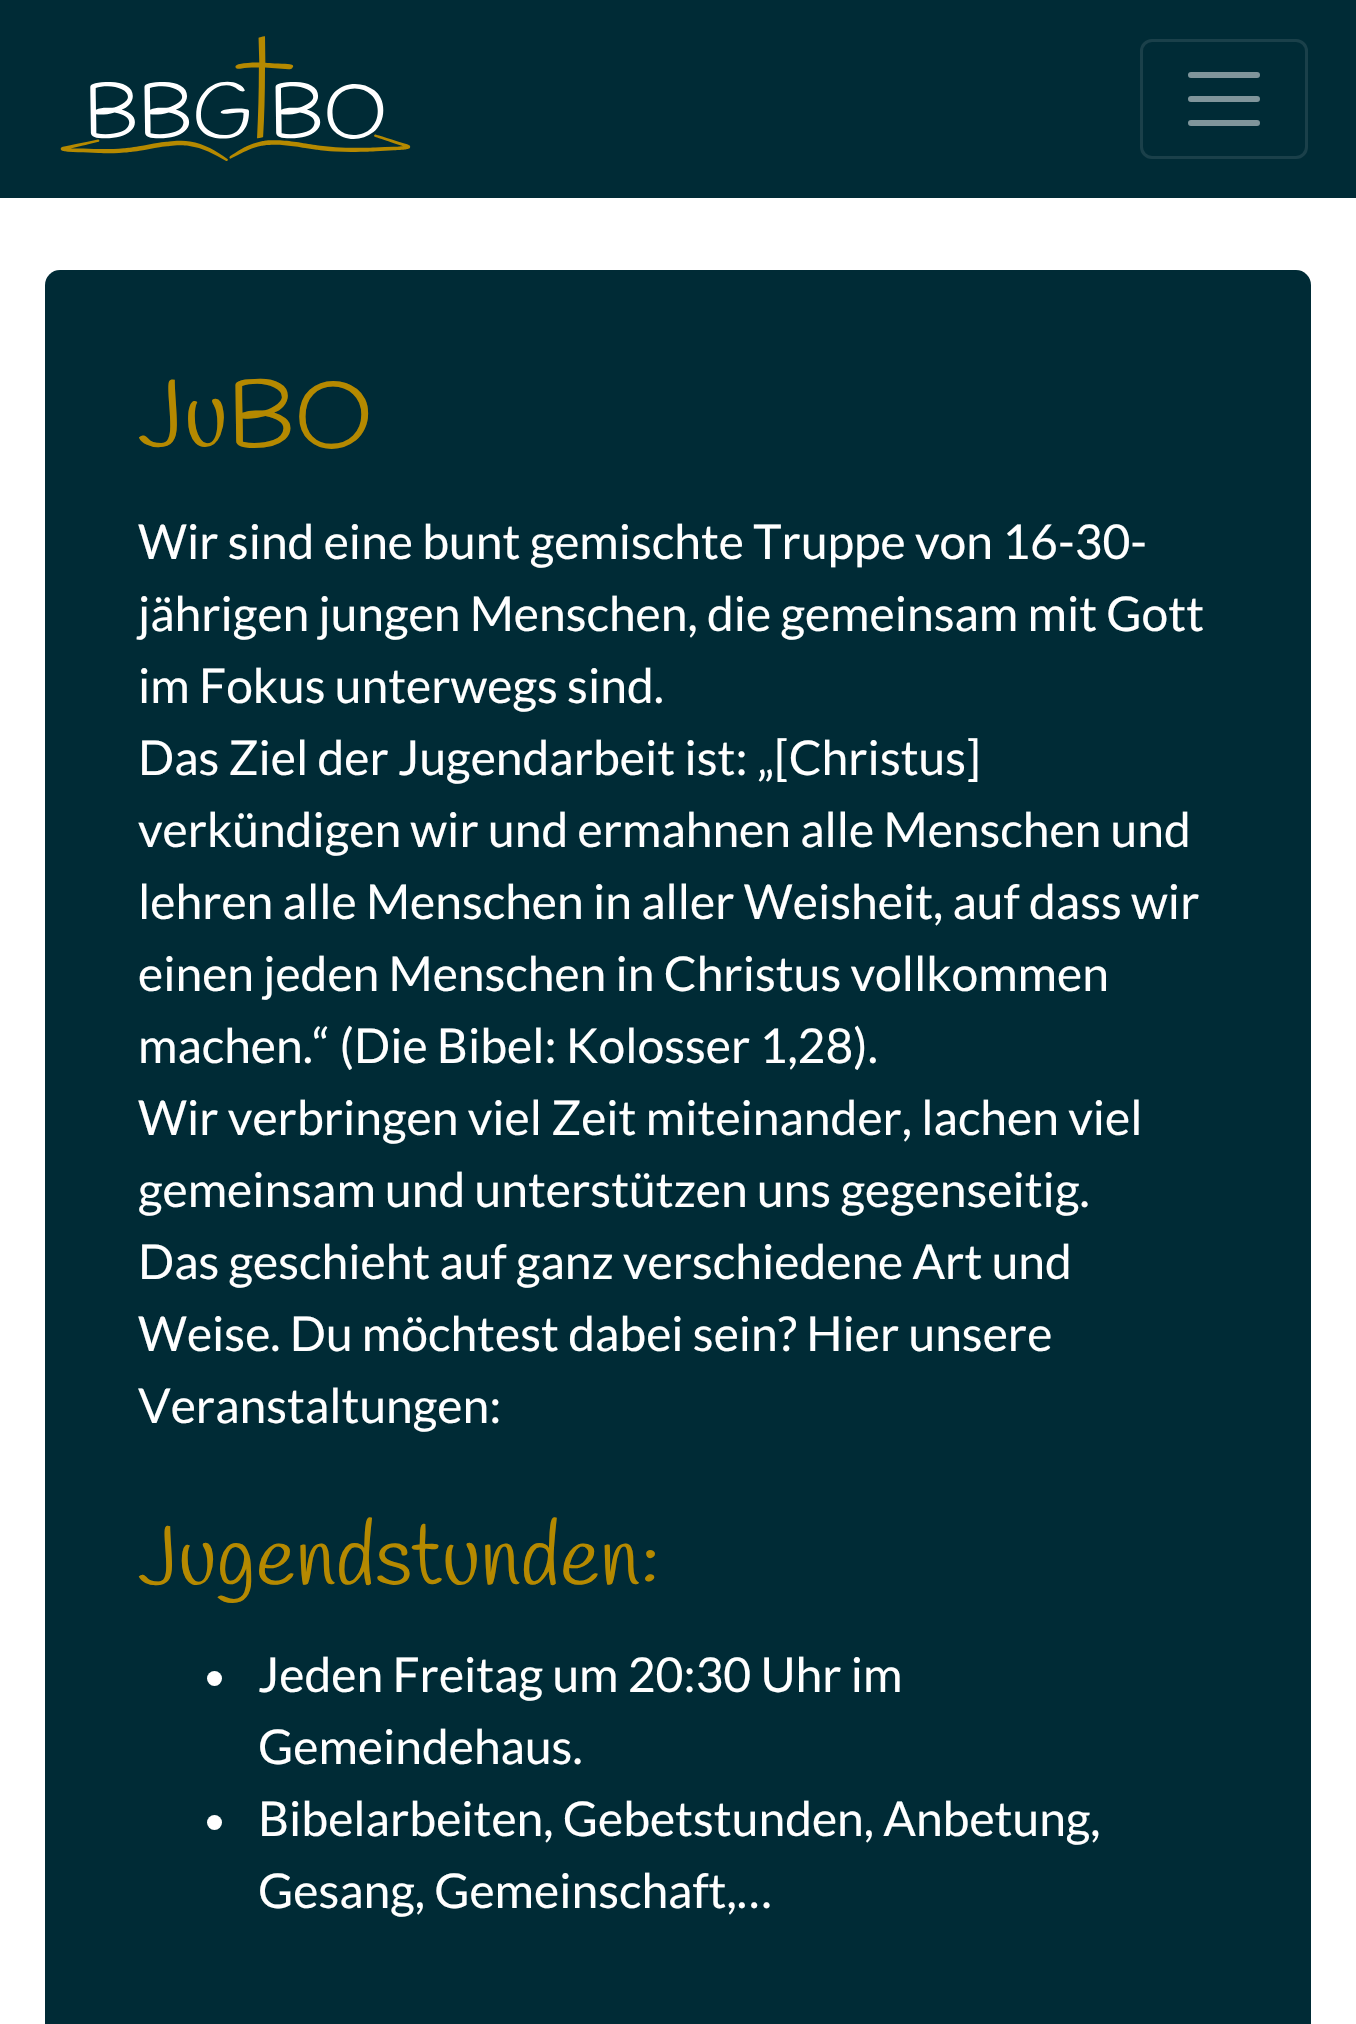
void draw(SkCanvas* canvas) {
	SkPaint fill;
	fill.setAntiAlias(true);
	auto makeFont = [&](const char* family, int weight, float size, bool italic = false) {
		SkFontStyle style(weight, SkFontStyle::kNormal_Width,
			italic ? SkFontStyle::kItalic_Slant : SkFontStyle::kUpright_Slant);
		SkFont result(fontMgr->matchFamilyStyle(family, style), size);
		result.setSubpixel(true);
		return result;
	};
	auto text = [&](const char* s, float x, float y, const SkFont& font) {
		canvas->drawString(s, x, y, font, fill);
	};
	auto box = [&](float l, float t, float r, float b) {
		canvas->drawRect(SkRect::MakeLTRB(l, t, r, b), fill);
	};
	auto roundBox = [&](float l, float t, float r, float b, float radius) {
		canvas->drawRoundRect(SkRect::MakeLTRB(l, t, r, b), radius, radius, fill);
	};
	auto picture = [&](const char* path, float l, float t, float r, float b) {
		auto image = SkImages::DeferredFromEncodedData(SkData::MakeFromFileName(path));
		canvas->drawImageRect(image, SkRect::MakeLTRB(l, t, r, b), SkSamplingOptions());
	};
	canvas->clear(0xFFFFFFFF);
	fill.setColor(0xFF002B36);
	box(0, 0, 1356, 198);
	picture("image0.png", 60, 36, 411, 161);
	fill.setStyle(SkPaint::kStroke_Style);
	fill.setStrokeWidth(3);
	fill.setColor(0xFF1A404A);
	canvas->drawRoundRect(SkRect::MakeLTRB(1141.5f, 40.5f, 1306.5f, 157.5f), 10.5f, 10.5f, fill);
	fill.setStrokeWidth(6);
	fill.setStrokeCap(SkPaint::kRound_Cap);
	fill.setColor(0xFF80959B);
	canvas->drawPath(SkPathBuilder().moveTo(1191, 75).lineTo(1257, 75).moveTo(1191, 99).lineTo(1257, 99).moveTo(1191, 123).lineTo(1257, 123).detach(), fill);
	fill.setStyle(SkPaint::kFill_Style);
	fill.setColor(0xFF002B36);
	roundBox(45, 270, 1311, 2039, 15);
	fill.setColor(0xFFFFFFFF);
	canvas->drawCircle(214.5f, 1678.5f, 7.5f, fill);
	canvas->drawCircle(214.5f, 1822.5f, 7.5f, fill);
	auto font1 = makeFont("Handlee", 400, 96);
	fill.setColor(0xFFB58900);
	text("JuBO", 138, 447, font1);
	auto font2 = makeFont("Lato", 400, 48);
	fill.setColor(0xFFFFFFFF);
	text("Wir sind eine bunt gemischte Truppe von 16-30-", 138, 559, font2);
	text("jährigen jungen Menschen, die gemeinsam mit Gott", 138, 631, font2);
	text("im Fokus unterwegs sind.", 138, 703, font2);
	text("Das Ziel der Jugendarbeit ist: „[Christus]", 138, 775, font2);
	text("verkündigen wir und ermahnen alle Menschen und", 138, 847, font2);
	text("lehren alle Menschen in aller Weisheit, auf dass wir", 138, 919, font2);
	text("einen jeden Menschen in Christus vollkommen", 138, 991, font2);
	text("machen.“ (Die Bibel: Kolosser 1,28).", 138, 1063, font2);
	text("Wir verbringen viel Zeit miteinander, lachen viel", 138, 1135, font2);
	text("gemeinsam und unterstützen uns gegenseitig.", 138, 1207, font2);
	text("Das geschieht auf ganz verschiedene Art und", 138, 1279, font2);
	text("Weise. Du möchtest dabei sein? Hier unsere", 138, 1351, font2);
	text("Veranstaltungen:", 138, 1423, font2);
	auto font3 = makeFont("Handlee", 400, 84);
	fill.setColor(0xFFB58900);
	text("Jugendstunden:", 138, 1585, font3);
	fill.setColor(0xFFFFFFFF);
	text("Jeden Freitag um 20:30 Uhr im", 258, 1692, font2);
	text("Gemeindehaus.", 258, 1764, font2);
	text("Bibelarbeiten, Gebetstunden, Anbetung,", 258, 1836, font2);
	text("Gesang, Gemeinschaft,…", 258, 1908, font2);
}
